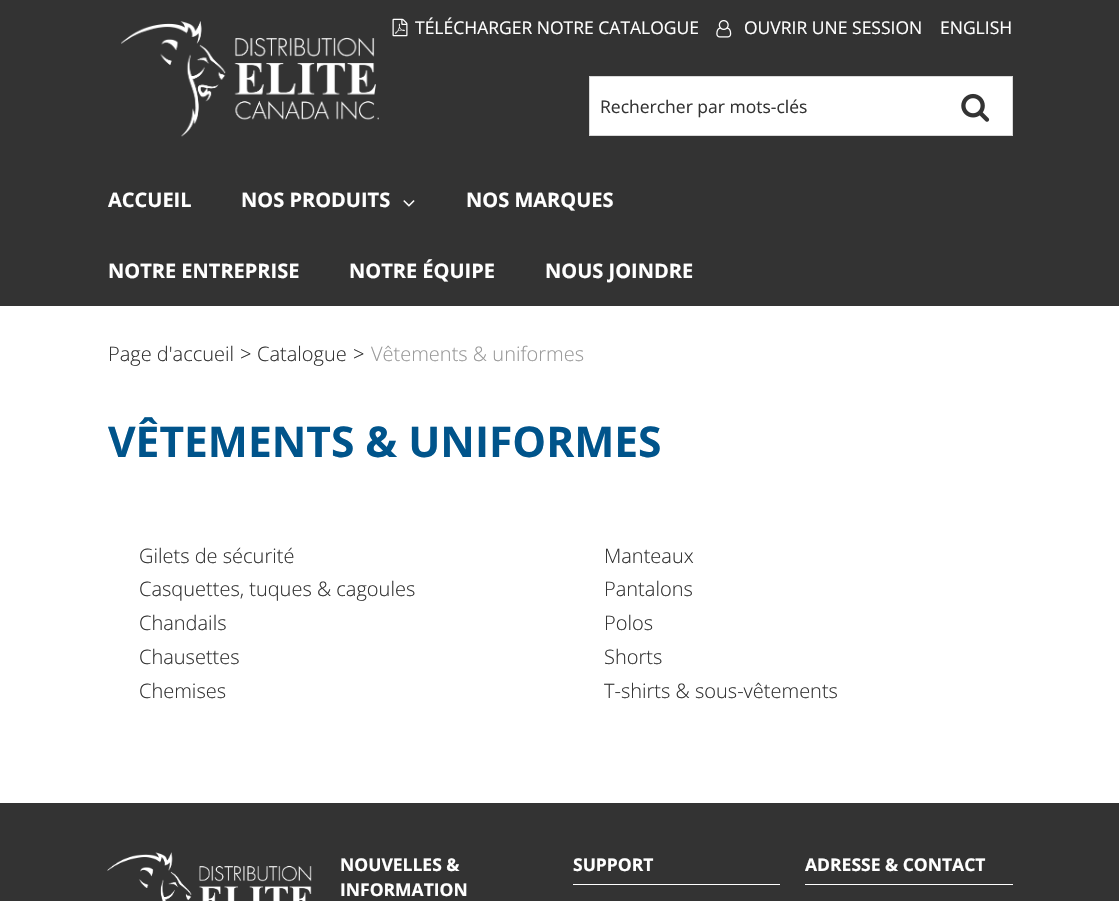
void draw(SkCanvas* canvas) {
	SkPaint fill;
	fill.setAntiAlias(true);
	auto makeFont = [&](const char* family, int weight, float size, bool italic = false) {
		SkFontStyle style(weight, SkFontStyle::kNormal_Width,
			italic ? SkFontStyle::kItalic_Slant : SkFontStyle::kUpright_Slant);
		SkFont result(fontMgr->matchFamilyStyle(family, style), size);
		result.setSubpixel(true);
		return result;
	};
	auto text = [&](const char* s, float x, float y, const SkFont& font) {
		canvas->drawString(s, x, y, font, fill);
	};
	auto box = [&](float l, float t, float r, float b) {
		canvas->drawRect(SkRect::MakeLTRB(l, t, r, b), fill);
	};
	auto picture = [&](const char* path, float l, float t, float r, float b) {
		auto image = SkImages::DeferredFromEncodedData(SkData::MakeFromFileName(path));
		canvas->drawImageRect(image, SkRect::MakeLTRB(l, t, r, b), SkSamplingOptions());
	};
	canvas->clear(0xFFFFFFFF);
	fill.setColor(0xFF333333);
	box(0, 0, 1119, 306);
	picture("image0.png", 392, 18, 408, 37);
	picture("image1.png", 716, 20, 732, 38);
	picture("image2.png", 121, 21, 379, 137);
	fill.setColor(0xFFFFFFFF);
	canvas->drawRect(SkRect::MakeLTRB(589.5f, 76.5f, 1012.5f, 135.5f), fill);
	fill.setStyle(SkPaint::kStroke_Style);
	fill.setStrokeWidth(1);
	fill.setColor(0xFFD9D9D9);
	canvas->drawRect(SkRect::MakeLTRB(589.5f, 76.5f, 1012.5f, 135.5f), fill);
	picture("image3.png", 961, 93, 990, 122);
	picture("image4.png", 403, 200, 415, 207);
	fill.setStyle(SkPaint::kFill_Style);
	fill.setColor(0xFF333333);
	box(0, 803, 1119, 901);
	picture("image5.png", 107, 852, 312, 901);
	fill.setColor(0xFFFFFFFF);
	box(573, 884, 780, 885);
	box(805, 884, 1013, 885);
	auto font1 = makeFont("Open Sans", 400, 17.5f);
	text("TÉLÉCHARGER NOTRE CATALOGUE", 415, 34, font1);
	text("OUVRIR UNE SESSION", 744, 34, font1);
	text("ENGLISH", 940, 34, font1);
	fill.setColor(0xFF333333);
	text("Rechercher par mots-clés", 600, 113, font1);
	auto font2 = makeFont("Open Sans", 700, 20);
	fill.setColor(0xFFFFFFFF);
	text("ACCUEIL", 108, 207, font2);
	text("NOS PRODUITS", 241, 207, font2);
	text("NOS MARQUES", 466, 207, font2);
	text("NOTRE ENTREPRISE", 108, 278, font2);
	text("NOTRE ÉQUIPE", 349, 278, font2);
	text("NOUS JOINDRE", 545, 278, font2);
	auto font3 = makeFont("Open Sans", 300, 20);
	fill.setColor(0xFF333333);
	text("Page d'accueil", 108, 361, font3);
	text(">", 240, 361, font3);
	text("Catalogue", 257, 361, font3);
	text(">", 353, 361, font3);
	fill.setColor(0xFF999999);
	text("Vêtements & uniformes", 371, 361, font3);
	auto font4 = makeFont("Open Sans", 700, 42.5f);
	fill.setColor(0xFF00548B);
	text("VÊTEMENTS & UNIFORMES", 108, 457, font4);
	fill.setColor(0xFF333333);
	text("Gilets de sécurité", 139, 563, font3);
	text("Casquettes, tuques & cagoules", 139, 596, font3);
	text("Chandails", 139, 630, font3);
	text("Chausettes", 139, 664, font3);
	text("Chemises", 139, 698, font3);
	text("Manteaux", 604, 563, font3);
	text("Pantalons", 604, 596, font3);
	text("Polos", 604, 630, font3);
	text("Shorts", 604, 664, font3);
	text("T-shirts & sous-vêtements", 604, 698, font3);
	auto font5 = makeFont("Open Sans", 700, 17.5f);
	fill.setColor(0xFFFFFFFF);
	text("NOUVELLES &", 340, 871, font5);
	text("INFORMATION", 340, 896, font5);
	text("SUPPORT", 573, 871, font5);
	text("ADRESSE & CONTACT", 805, 871, font5);
}
